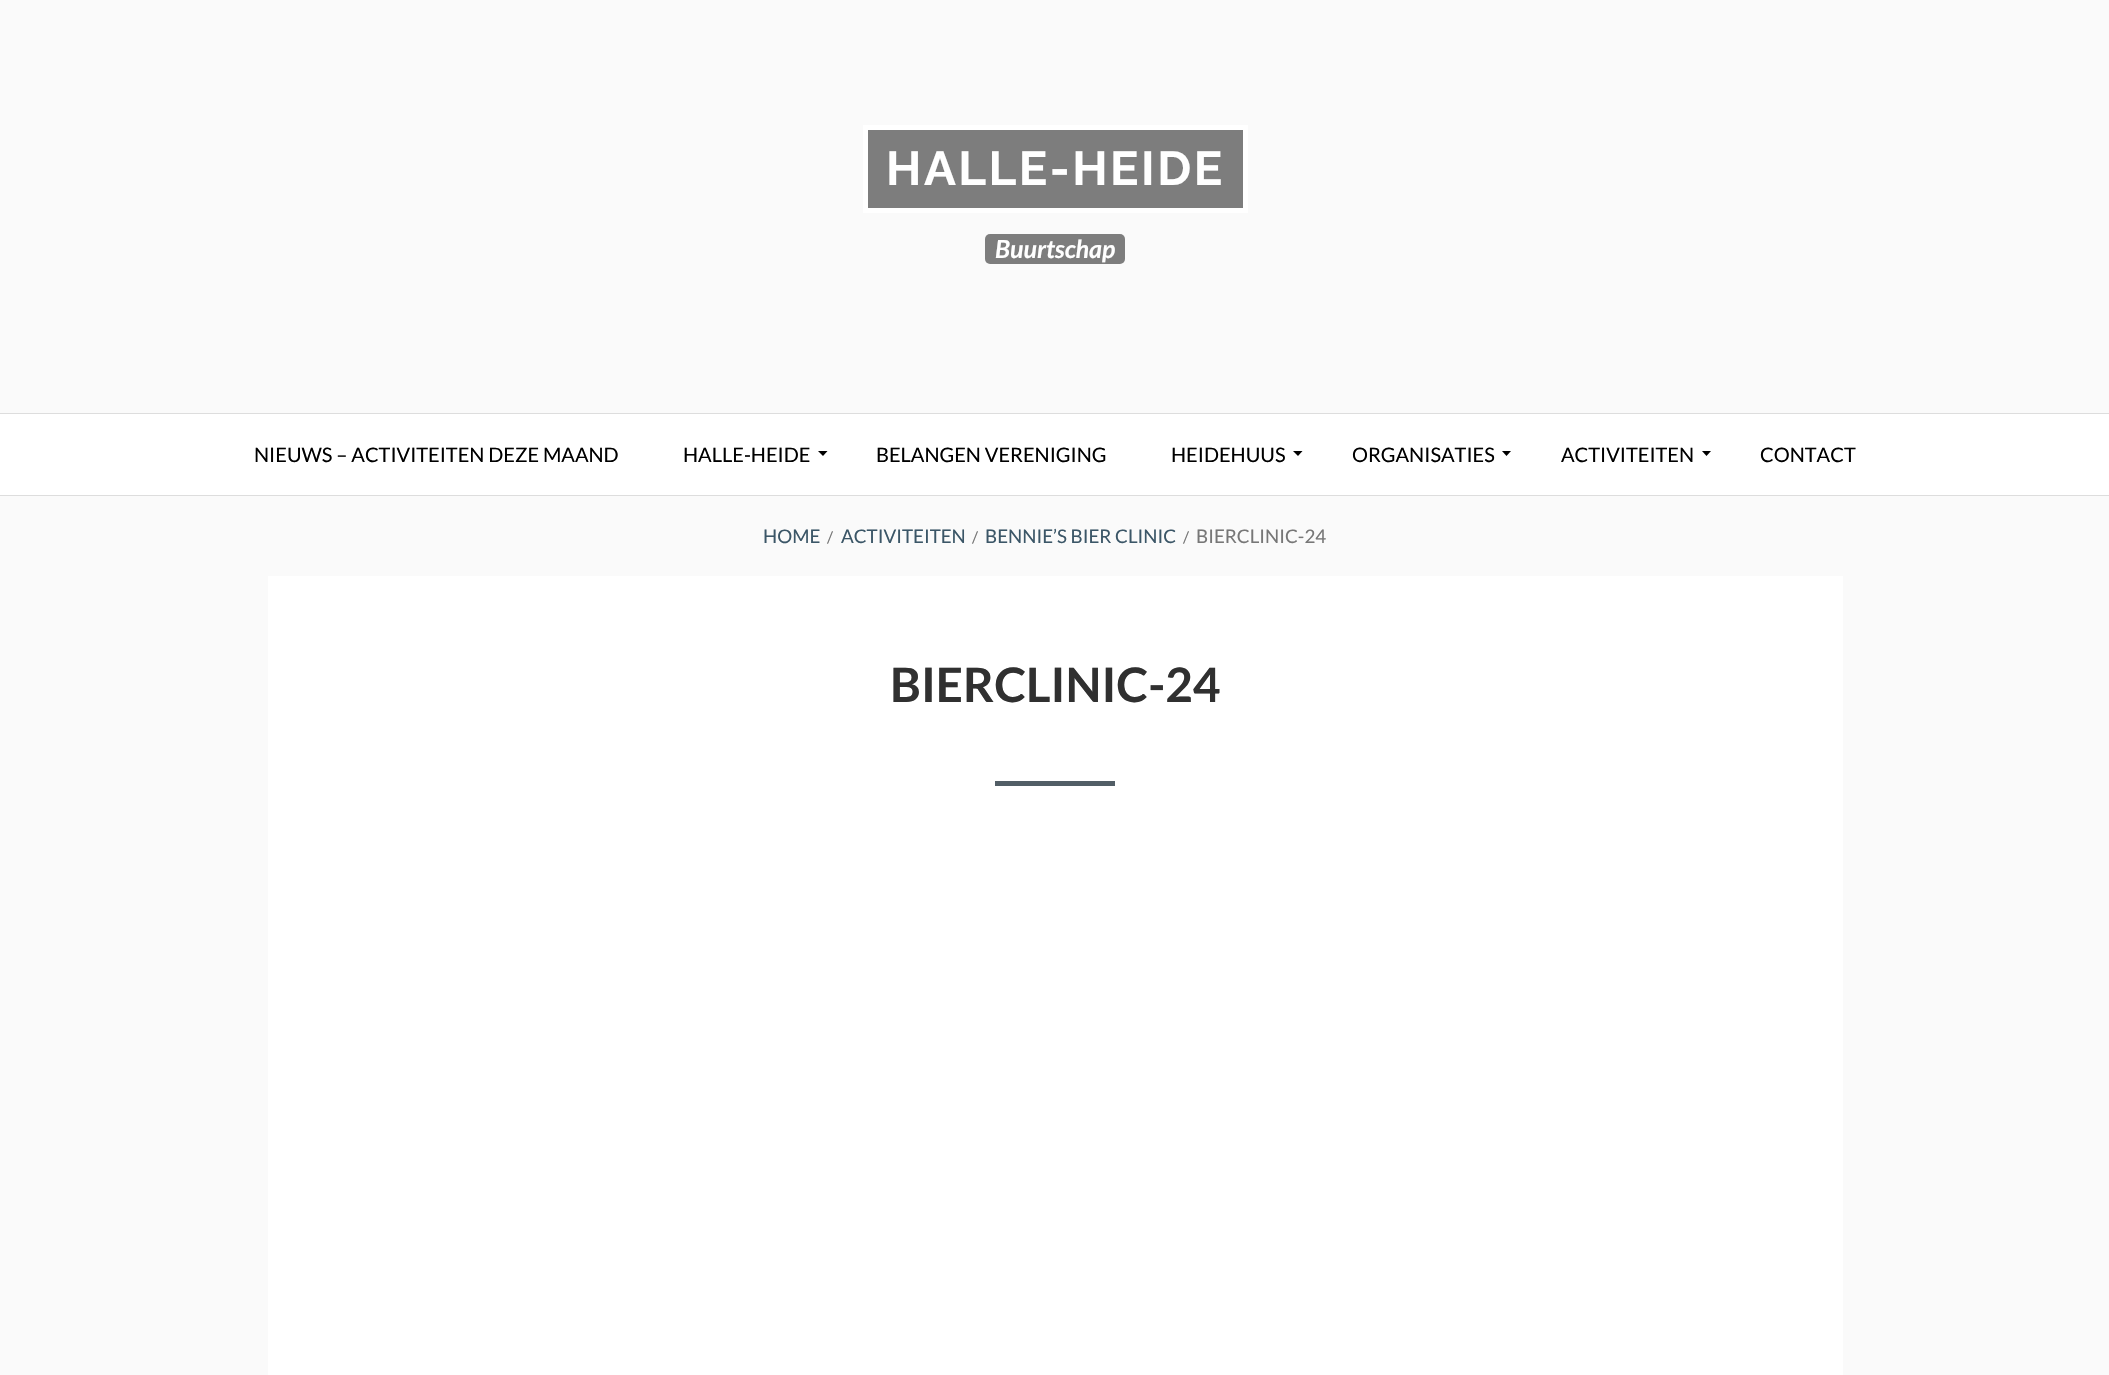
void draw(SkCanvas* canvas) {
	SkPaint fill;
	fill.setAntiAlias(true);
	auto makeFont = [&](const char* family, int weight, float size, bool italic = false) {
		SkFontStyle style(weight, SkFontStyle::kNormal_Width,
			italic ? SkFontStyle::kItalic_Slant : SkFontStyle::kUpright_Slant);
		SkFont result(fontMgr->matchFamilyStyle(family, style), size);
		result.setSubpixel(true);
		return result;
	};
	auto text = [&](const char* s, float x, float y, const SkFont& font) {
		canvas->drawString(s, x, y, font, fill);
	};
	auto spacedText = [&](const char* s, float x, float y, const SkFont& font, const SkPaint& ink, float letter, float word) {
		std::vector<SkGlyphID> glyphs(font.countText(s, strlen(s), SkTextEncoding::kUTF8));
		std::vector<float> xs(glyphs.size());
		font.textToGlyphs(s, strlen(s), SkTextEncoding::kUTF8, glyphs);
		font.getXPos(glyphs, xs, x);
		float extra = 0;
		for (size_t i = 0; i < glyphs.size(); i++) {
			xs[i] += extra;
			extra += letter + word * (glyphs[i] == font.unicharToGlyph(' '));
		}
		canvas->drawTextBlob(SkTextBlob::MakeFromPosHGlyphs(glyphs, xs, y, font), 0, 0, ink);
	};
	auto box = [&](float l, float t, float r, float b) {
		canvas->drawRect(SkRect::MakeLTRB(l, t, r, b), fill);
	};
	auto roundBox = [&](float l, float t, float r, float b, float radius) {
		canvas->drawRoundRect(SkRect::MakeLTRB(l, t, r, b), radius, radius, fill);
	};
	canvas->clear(0xFFFAFAFA);
	fill.setColor(0xFFDDDDDD);
	box(0, 413, 2109, 414);
	fill.setColor(0xFF7D7D7D);
	canvas->drawRect(SkRect::MakeLTRB(865.5f, 127.5f, 1245.5f, 210.5f), fill);
	fill.setStyle(SkPaint::kStroke_Style);
	fill.setStrokeWidth(5);
	fill.setColor(0xFFFFFFFF);
	canvas->drawRect(SkRect::MakeLTRB(865.5f, 127.5f, 1245.5f, 210.5f), fill);
	fill.setStyle(SkPaint::kFill_Style);
	fill.setColor(0xFF7D7D7D);
	roundBox(985, 234, 1125, 264, 5);
	fill.setColor(0xFFFFFFFF);
	box(0, 414, 2109, 495);
	fill.setColor(0xFFDDDDDD);
	box(0, 495, 2109, 496);
	fill.setColor(0xFF000000);
	canvas->drawPath(SkPathBuilder().moveTo(818, 451).lineTo(827.5f, 451).lineTo(823, 456).close().detach(), fill);
	canvas->drawPath(SkPathBuilder().moveTo(1293, 451).lineTo(1302.5f, 451).lineTo(1298, 456).close().detach(), fill);
	canvas->drawPath(SkPathBuilder().moveTo(1502, 451).lineTo(1511, 451).lineTo(1506.5f, 456).close().detach(), fill);
	canvas->drawPath(SkPathBuilder().moveTo(1702, 451).lineTo(1711, 451).lineTo(1706.5f, 456).close().detach(), fill);
	fill.setColor(0xFFFFFFFF);
	box(268, 576, 1843, 1375);
	fill.setColor(0xFF525E66);
	box(995, 781, 1115, 786);
	auto font1 = makeFont("Raleway", 700, 47.5f);
	fill.setColor(0xFFFFFFFF);
	spacedText("HALLE-HEIDE", 886, 185, font1, fill, 2.5f, 0);
	auto font2 = makeFont("Lato", 700, 25, true);
	text("Buurtschap", 995, 258, font2);
	auto font3 = makeFont("Lato", 400, 20);
	fill.setColor(0xFF000000);
	text("NIEUWS – ACTIVITEITEN DEZE MAAND", 254, 462, font3);
	text("HALLE-HEIDE", 683, 462, font3);
	text("BELANGEN VERENIGING", 876, 462, font3);
	text("HEIDEHUUS", 1171, 462, font3);
	text("ORGANISATIES", 1352, 462, font3);
	text("ACTIVITEITEN", 1561, 462, font3);
	text("CONTACT", 1760, 462, font3);
	auto font4 = makeFont("Lato", 400, 18.75f);
	fill.setColor(0xFF3B5667);
	text("HOME", 763, 543, font4);
	auto font5 = makeFont("Lato", 400, 16);
	fill.setColor(0xFF777777);
	text("/", 827, 543, font5);
	fill.setColor(0xFF3B5667);
	text("ACTIVITEITEN", 841, 543, font4);
	fill.setColor(0xFF777777);
	text("/", 972, 543, font5);
	fill.setColor(0xFF3B5667);
	text("BENNIE’S BIER CLINIC", 985, 543, font4);
	fill.setColor(0xFF777777);
	text("/", 1183, 543, font5);
	text("BIERCLINIC-24", 1196, 543, font4);
	auto font6 = makeFont("Lato", 700, 47.5f);
	fill.setColor(0xFF303030);
	text("BIERCLINIC-24", 890, 702, font6);
}
